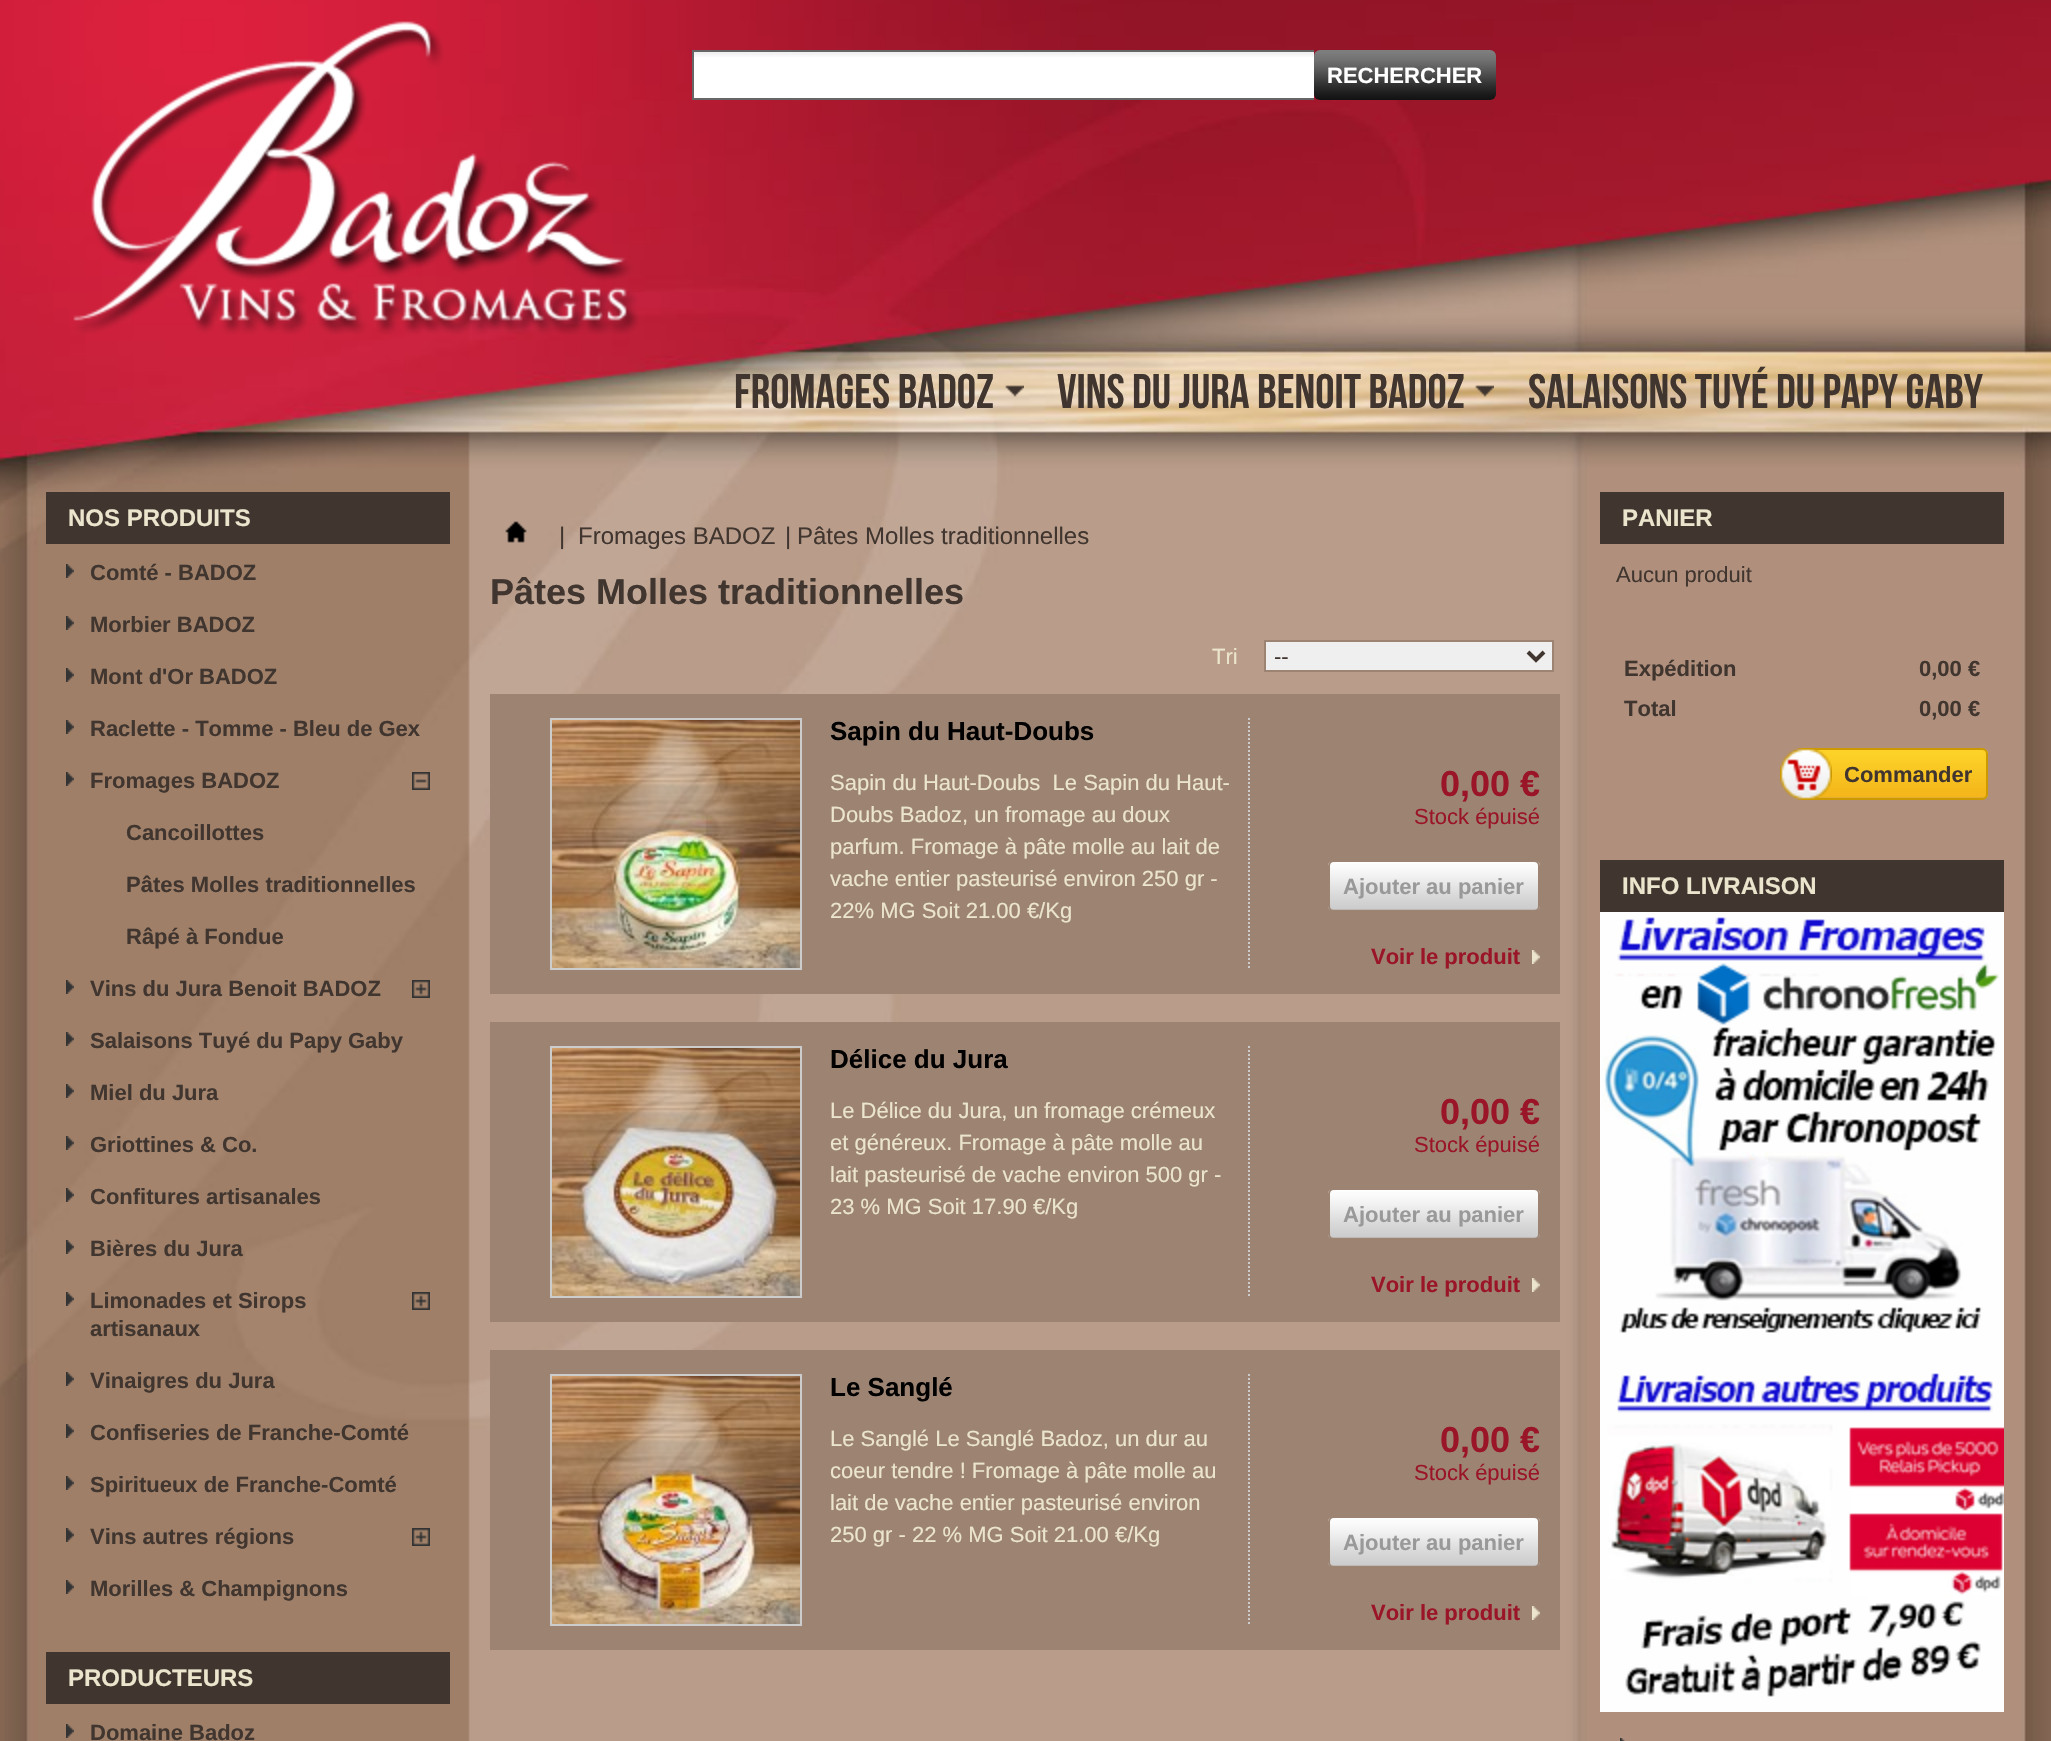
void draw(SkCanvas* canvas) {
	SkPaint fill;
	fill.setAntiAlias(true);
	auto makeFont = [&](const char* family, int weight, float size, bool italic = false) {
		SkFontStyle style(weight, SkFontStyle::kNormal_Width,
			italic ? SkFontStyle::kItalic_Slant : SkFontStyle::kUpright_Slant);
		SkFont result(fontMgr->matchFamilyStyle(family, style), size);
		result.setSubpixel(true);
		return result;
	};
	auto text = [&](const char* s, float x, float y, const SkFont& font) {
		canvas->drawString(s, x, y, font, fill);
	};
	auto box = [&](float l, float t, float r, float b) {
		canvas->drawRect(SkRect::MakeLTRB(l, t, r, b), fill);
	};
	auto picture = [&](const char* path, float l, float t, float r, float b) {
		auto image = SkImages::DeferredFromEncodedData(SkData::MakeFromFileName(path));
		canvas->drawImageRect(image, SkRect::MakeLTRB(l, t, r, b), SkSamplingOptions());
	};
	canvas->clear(0xFFFFFFFF);
	picture("image0.png", 0, 0, 2051, 1741);
	picture("image1.png", 73, 21, 639, 335);
	fill.setColor(0xFFFFFFFF);
	box(694, 57, 1314, 98);
	picture("image2.png", 694, 52, 1314, 57);
	fill.setColor(0xFF666666);
	box(692, 50, 1314, 52);
	box(692, 98, 1314, 100);
	box(692, 50, 694, 100);
	picture("image3.png", 1314, 50, 1496, 100);
	picture("image4.png", 1005, 385, 1024, 397);
	picture("image5.png", 1475, 385, 1494, 397);
	fill.setColor(0xFF41362F);
	box(46, 492, 450, 544);
	picture("image6.png", 66, 564, 74, 578);
	picture("image6.png", 66, 616, 74, 630);
	picture("image6.png", 66, 668, 74, 682);
	picture("image6.png", 66, 720, 74, 734);
	picture("image6.png", 66, 772, 74, 786);
	picture("image7.png", 412, 772, 430, 790);
	picture("image6.png", 66, 980, 74, 994);
	picture("image8.png", 412, 980, 430, 998);
	picture("image6.png", 66, 1032, 74, 1046);
	picture("image6.png", 66, 1084, 74, 1098);
	picture("image6.png", 66, 1136, 74, 1150);
	picture("image9.png", 66, 1188, 74, 1202);
	picture("image10.png", 66, 1240, 74, 1254);
	picture("image10.png", 66, 1292, 74, 1306);
	picture("image8.png", 412, 1292, 430, 1310);
	picture("image6.png", 66, 1372, 74, 1386);
	picture("image6.png", 66, 1424, 74, 1438);
	picture("image6.png", 66, 1476, 74, 1490);
	picture("image6.png", 66, 1528, 74, 1542);
	picture("image8.png", 412, 1528, 430, 1546);
	picture("image6.png", 66, 1580, 74, 1594);
	box(46, 1652, 450, 1704);
	picture("image6.png", 66, 1724, 74, 1738);
	picture("image11.png", 505, 521, 527, 543);
	fill.setColor(0xFFEFEFEF);
	canvas->drawRect(SkRect::MakeLTRB(1265, 641, 1553, 671), fill);
	fill.setStyle(SkPaint::kStroke_Style);
	fill.setStrokeWidth(2);
	fill.setColor(0xFF9C8372);
	canvas->drawRect(SkRect::MakeLTRB(1265, 641, 1553, 671), fill);
	fill.setStrokeWidth(4);
	fill.setColor(0xFF41362F);
	canvas->drawPath(SkPathBuilder().moveTo(1528, 652).lineTo(1536, 660).lineTo(1544, 652).detach(), fill);
	fill.setStyle(SkPaint::kFill_Style);
	fill.setColor(0xFF9C8372);
	box(490, 694, 1560, 994);
	fill.setStyle(SkPaint::kStroke_Style);
	fill.setStrokeWidth(2);
	fill.setColor(0xFFCCCCCC);
	fill.setPathEffect(SkDashPathEffect::Make({{2, 2}}, 0));
	canvas->drawPath(SkPathBuilder().moveTo(1249, 718).lineTo(1249, 970).detach(), fill);
	fill.setPathEffect(nullptr);
	canvas->drawRect(SkRect::MakeLTRB(551, 719, 801, 969), fill);
	picture("image12.png", 552, 720, 800, 968);
	picture("image13.png", 1328, 862, 1540, 911);
	fill.setColor(0xFF9C8372);
	canvas->drawRoundRect(SkRect::MakeLTRB(1329, 861, 1539, 911), 5, 5, fill);
	picture("image14.png", 1532, 950, 1540, 964);
	fill.setStyle(SkPaint::kFill_Style);
	box(490, 1022, 1560, 1322);
	fill.setStyle(SkPaint::kStroke_Style);
	fill.setColor(0xFFCCCCCC);
	fill.setPathEffect(SkDashPathEffect::Make({{2, 2}}, 0));
	canvas->drawPath(SkPathBuilder().moveTo(1249, 1046).lineTo(1249, 1298).detach(), fill);
	fill.setPathEffect(nullptr);
	canvas->drawRect(SkRect::MakeLTRB(551, 1047, 801, 1297), fill);
	picture("image15.png", 552, 1048, 800, 1296);
	picture("image13.png", 1328, 1190, 1540, 1239);
	fill.setColor(0xFF9C8372);
	canvas->drawRoundRect(SkRect::MakeLTRB(1329, 1189, 1539, 1239), 5, 5, fill);
	picture("image14.png", 1532, 1278, 1540, 1292);
	fill.setStyle(SkPaint::kFill_Style);
	box(490, 1350, 1560, 1650);
	fill.setStyle(SkPaint::kStroke_Style);
	fill.setColor(0xFFCCCCCC);
	fill.setPathEffect(SkDashPathEffect::Make({{2, 2}}, 0));
	canvas->drawPath(SkPathBuilder().moveTo(1249, 1374).lineTo(1249, 1626).detach(), fill);
	fill.setPathEffect(nullptr);
	canvas->drawRect(SkRect::MakeLTRB(551, 1375, 801, 1625), fill);
	picture("image16.png", 552, 1376, 800, 1624);
	picture("image13.png", 1328, 1518, 1540, 1567);
	fill.setColor(0xFF9C8372);
	canvas->drawRoundRect(SkRect::MakeLTRB(1329, 1517, 1539, 1567), 5, 5, fill);
	picture("image14.png", 1532, 1606, 1540, 1620);
	fill.setStyle(SkPaint::kFill_Style);
	fill.setColor(0xFF41362F);
	box(1600, 492, 2004, 544);
	picture("image17.png", 1809, 750, 1988, 799);
	fill.setStyle(SkPaint::kStroke_Style);
	fill.setColor(0xFFCC9900);
	canvas->drawRoundRect(SkRect::MakeLTRB(1803, 749, 1987, 799), 5, 5, fill);
	picture("image18.png", 1780, 748, 1832, 800);
	fill.setStyle(SkPaint::kFill_Style);
	fill.setColor(0xFF41362F);
	box(1600, 860, 2004, 912);
	picture("image19.png", 1600, 912, 2004, 1712);
	picture("image20.png", 1620, 1738, 1625, 1741);
	auto font1 = makeFont("Liberation Sans", 700, 22);
	fill.setColor(0xFFFFFFFF);
	text("RECHERCHER", 1327, 83, font1);
	auto font2 = makeFont("Bebas Neue", 400, 48.5f);
	fill.setColor(0xFF41362F);
	text("Fromages BADOZ", 734, 408, font2);
	text("Vins du Jura Benoit BADOZ", 1057, 408, font2);
	text("Salaisons Tuyé du Papy Gaby", 1528, 408, font2);
	auto font3 = makeFont("Liberation Sans", 700, 24);
	fill.setColor(0xFFECE5CD);
	text("NOS PRODUITS", 68, 526, font3);
	fill.setColor(0xFF41362F);
	text("Comté - BADOZ", 90, 580, font1);
	text("Morbier BADOZ", 90, 632, font1);
	text("Mont d'Or BADOZ", 90, 684, font1);
	text("Raclette - Tomme - Bleu de Gex", 90, 736, font1);
	text("Fromages BADOZ", 90, 788, font1);
	text("Cancoillottes", 126, 840, font1);
	text("Pâtes Molles traditionnelles", 126, 892, font1);
	text("Râpé à Fondue", 126, 944, font1);
	text("Vins du Jura Benoit BADOZ", 90, 996, font1);
	text("Salaisons Tuyé du Papy Gaby", 90, 1048, font1);
	text("Miel du Jura", 90, 1100, font1);
	text("Griottines & Co.", 90, 1152, font1);
	text("Confitures artisanales", 90, 1204, font1);
	text("Bières du Jura", 90, 1256, font1);
	text("Limonades et Sirops", 90, 1308, font1);
	text("artisanaux", 90, 1336, font1);
	text("Vinaigres du Jura", 90, 1388, font1);
	text("Confiseries de Franche-Comté", 90, 1440, font1);
	text("Spiritueux de Franche-Comté", 90, 1492, font1);
	text("Vins autres régions", 90, 1544, font1);
	text("Morilles & Champignons", 90, 1596, font1);
	fill.setColor(0xFFECE5CD);
	text("PRODUCTEURS", 68, 1686, font3);
	fill.setColor(0xFF41362F);
	text("Domaine Badoz", 90, 1740, font1);
	auto font4 = makeFont("Liberation Sans", 400, 24);
	text("|", 559, 544, font4);
	text("Fromages BADOZ", 578, 544, font4);
	text("|", 785, 544, font4);
	text("Pâtes Molles traditionnelles", 797, 544, font4);
	auto font5 = makeFont("Liberation Sans", 700, 36);
	text("Pâtes Molles traditionnelles", 490, 604, font5);
	auto font6 = makeFont("Liberation Sans", 400, 22);
	fill.setColor(0xFFECE5CD);
	text("Tri", 1212, 664, font6);
	fill.setColor(0xFF41362F);
	text("--", 1274, 664, font6);
	auto font7 = makeFont("Liberation Sans", 700, 26);
	fill.setColor(0xFF000000);
	text("Sapin du Haut-Doubs", 830, 740, font7);
	fill.setColor(0xFFECE5CD);
	text("Sapin du Haut-Doubs  Le Sapin du Haut-", 830, 790, font6);
	text("Doubs Badoz, un fromage au doux", 830, 822, font6);
	text("parfum. Fromage à pâte molle au lait de", 830, 854, font6);
	text("vache entier pasteurisé environ 250 gr -", 830, 886, font6);
	text("22% MG Soit 21.00 €/Kg", 830, 918, font6);
	fill.setColor(0xFF9A1528);
	text("0,00 €", 1440, 796, font5);
	text("Stock épuisé", 1414, 824, font6);
	fill.setColor(0xFF999999);
	text("Ajouter au panier", 1343, 894, font1);
	fill.setColor(0xFF9A1528);
	text("Voir le produit", 1371, 964, font1);
	fill.setColor(0xFF000000);
	text("Délice du Jura", 830, 1068, font7);
	fill.setColor(0xFFECE5CD);
	text("Le Délice du Jura, un fromage crémeux", 830, 1118, font6);
	text("et généreux. Fromage à pâte molle au", 830, 1150, font6);
	text("lait pasteurisé de vache environ 500 gr -", 830, 1182, font6);
	text("23 % MG Soit 17.90 €/Kg", 830, 1214, font6);
	fill.setColor(0xFF9A1528);
	text("0,00 €", 1440, 1124, font5);
	text("Stock épuisé", 1414, 1152, font6);
	fill.setColor(0xFF999999);
	text("Ajouter au panier", 1343, 1222, font1);
	fill.setColor(0xFF9A1528);
	text("Voir le produit", 1371, 1292, font1);
	fill.setColor(0xFF000000);
	text("Le Sanglé", 830, 1396, font7);
	fill.setColor(0xFFECE5CD);
	text("Le Sanglé Le Sanglé Badoz, un dur au", 830, 1446, font6);
	text("coeur tendre ! Fromage à pâte molle au", 830, 1478, font6);
	text("lait de vache entier pasteurisé environ", 830, 1510, font6);
	text("250 gr - 22 % MG Soit 21.00 €/Kg", 830, 1542, font6);
	fill.setColor(0xFF9A1528);
	text("0,00 €", 1440, 1452, font5);
	text("Stock épuisé", 1414, 1480, font6);
	fill.setColor(0xFF999999);
	text("Ajouter au panier", 1343, 1550, font1);
	fill.setColor(0xFF9A1528);
	text("Voir le produit", 1371, 1620, font1);
	fill.setColor(0xFFECE5CD);
	text("PANIER", 1622, 526, font3);
	fill.setColor(0xFF41362F);
	text("Aucun produit", 1616, 582, font6);
	text("Expédition", 1624, 676, font1);
	text("0,00 €", 1919, 676, font1);
	text("Total", 1624, 716, font1);
	text("0,00 €", 1919, 716, font1);
	text("Commander", 1844, 782, font1);
	fill.setColor(0xFFECE5CD);
	text("INFO LIVRAISON", 1622, 894, font3);
}
